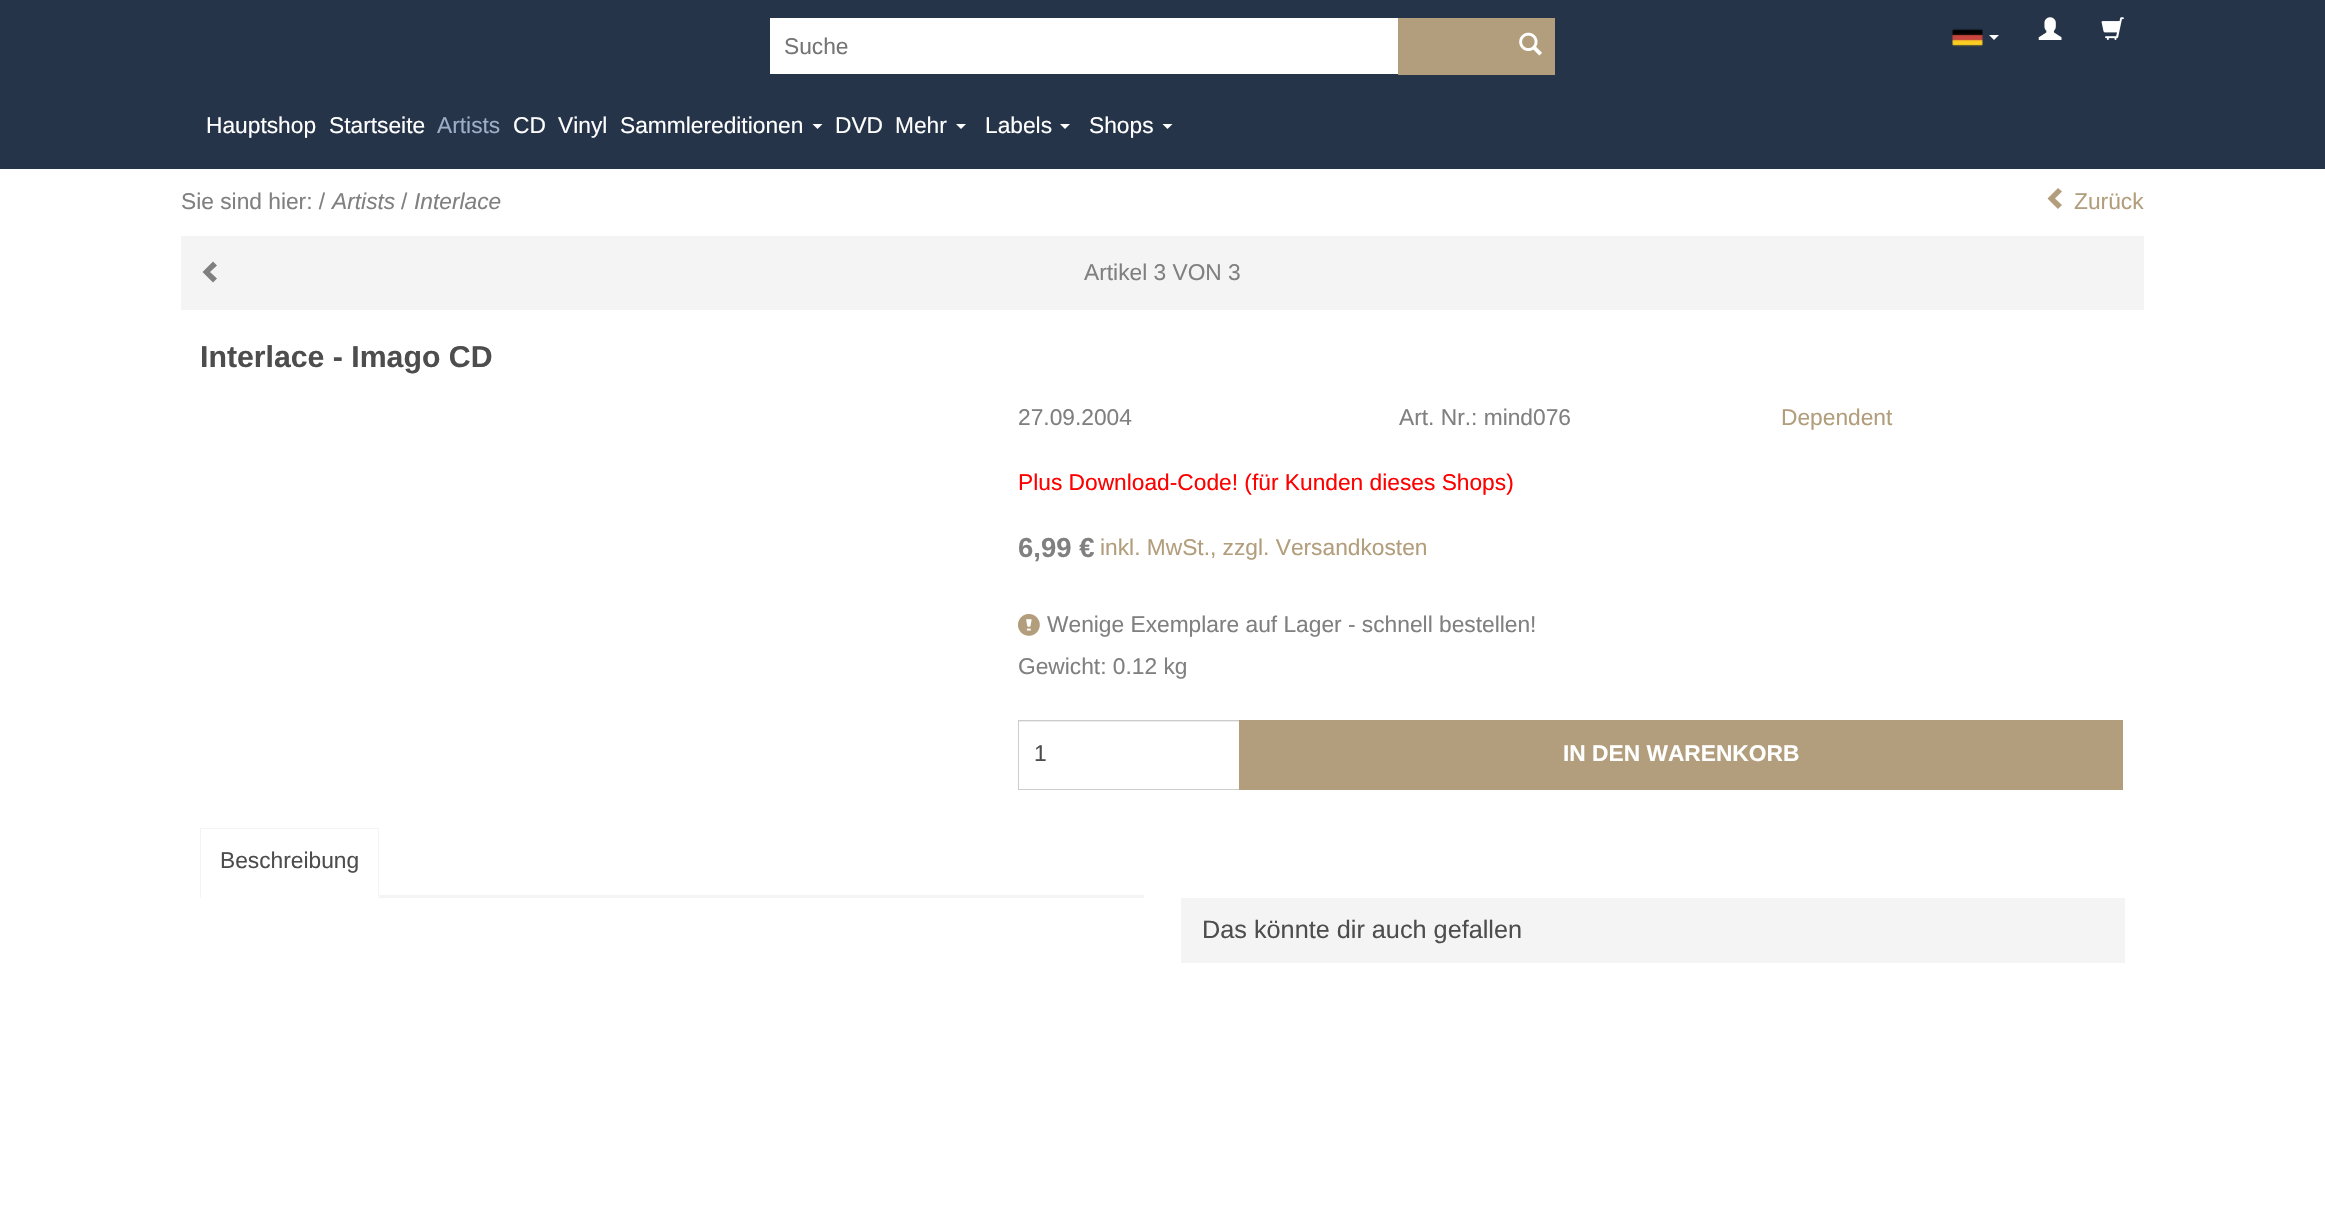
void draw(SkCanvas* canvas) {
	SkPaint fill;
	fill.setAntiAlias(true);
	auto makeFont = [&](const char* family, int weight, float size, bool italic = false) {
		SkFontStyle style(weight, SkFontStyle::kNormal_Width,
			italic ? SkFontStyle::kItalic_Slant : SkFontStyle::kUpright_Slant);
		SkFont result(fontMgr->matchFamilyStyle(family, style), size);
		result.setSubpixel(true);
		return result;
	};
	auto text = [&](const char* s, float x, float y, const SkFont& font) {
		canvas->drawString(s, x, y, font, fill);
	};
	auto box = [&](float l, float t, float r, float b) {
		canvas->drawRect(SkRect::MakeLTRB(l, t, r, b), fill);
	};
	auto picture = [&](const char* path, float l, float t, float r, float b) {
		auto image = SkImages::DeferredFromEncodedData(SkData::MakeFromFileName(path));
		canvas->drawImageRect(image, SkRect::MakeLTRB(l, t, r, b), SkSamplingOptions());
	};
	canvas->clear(0xFFFFFFFF);
	fill.setColor(0xFF253449);
	box(0, 0, 2325, 169);
	fill.setColor(0xFFFFFFFF);
	box(770, 18, 1398, 74);
	fill.setColor(0xFFB29E7C);
	box(1398, 18, 1555, 75);
	picture("image0.png", 1519, 32, 1542, 56);
	picture("image1.png", 1952, 28, 1983, 47);
	fill.setColor(0xFFFFFFFF);
	canvas->drawPath(SkPathBuilder().moveTo(1989, 35).lineTo(1999, 35).lineTo(1994, 40).close().detach(), fill);
	picture("image2.png", 2038, 17, 2062, 40);
	picture("image3.png", 2101, 17, 2124, 40);
	canvas->drawPath(SkPathBuilder().moveTo(812.5f, 124).lineTo(822.5f, 124).lineTo(817.5f, 129).close().detach(), fill);
	canvas->drawPath(SkPathBuilder().moveTo(956, 124).lineTo(966, 124).lineTo(961, 129).close().detach(), fill);
	canvas->drawPath(SkPathBuilder().moveTo(1060, 124).lineTo(1070, 124).lineTo(1065, 129).close().detach(), fill);
	canvas->drawPath(SkPathBuilder().moveTo(1162.5f, 124).lineTo(1172.5f, 124).lineTo(1167.5f, 129).close().detach(), fill);
	fill.setColor(0xFFB29E7C);
	canvas->drawPath(SkPathBuilder().moveTo(2047.5f, 198.5f).lineTo(2058, 188).lineTo(2062, 191.5f).lineTo(2055, 198.5f).lineTo(2062, 205).lineTo(2058, 209).close().detach(), fill);
	fill.setColor(0xFFF4F4F4);
	box(181, 236, 2144, 310);
	fill.setColor(0xFF808080);
	canvas->drawPath(SkPathBuilder().moveTo(202.5f, 272).lineTo(213, 261.5f).lineTo(217, 265.5f).lineTo(210, 272).lineTo(217, 278.5f).lineTo(213, 282.5f).close().detach(), fill);
	picture("image4.png", 1018, 614, 1040, 636);
	fill.setColor(0xFFECECEC);
	box(1019, 721, 1239, 722);
	fill.setColor(0xFFCCCCCC);
	box(1018, 720, 1239, 721);
	box(1018, 789, 1239, 790);
	box(1018, 720, 1019, 790);
	fill.setColor(0xFFB29E7C);
	box(1239, 720, 2123, 790);
	fill.setColor(0xFFF4F4F4);
	box(200, 828, 379, 829);
	box(378, 828, 379, 898);
	fill.setColor(0xFFFFFFFF);
	box(378, 896, 379, 897);
	fill.setColor(0xFFF4F4F4);
	box(200, 828, 201, 898);
	box(379, 895, 1144, 898);
	box(1181, 898, 2125, 963);
	auto font1 = makeFont("Liberation Sans", 400, 22.75f);
	fill.setColor(0xFF757575);
	text("Suche", 784, 54, font1);
	fill.setColor(0xFFFFFFFF);
	text("Hauptshop", 206, 133, font1);
	text("Startseite", 329, 133, font1);
	fill.setColor(0xFF9CAEC6);
	text("Artists", 437, 133, font1);
	fill.setColor(0xFFFFFFFF);
	text("CD", 513, 133, font1);
	text("Vinyl", 558, 133, font1);
	text("Sammlereditionen", 620, 133, font1);
	text("DVD", 835, 133, font1);
	text("Mehr", 895, 133, font1);
	text("Labels", 985, 133, font1);
	text("Shops", 1089, 133, font1);
	fill.setColor(0xFF808080);
	text("Sie sind hier: /", 181, 209, font1);
	auto font2 = makeFont("Liberation Sans", 400, 22.75f, true);
	text("Artists", 332, 209, font2);
	text("/", 401, 209, font1);
	text("Interlace", 414, 209, font2);
	fill.setColor(0xFFB29E7C);
	text("Zurück", 2074, 209, font1);
	fill.setColor(0xFF808080);
	text("Artikel 3 VON 3", 1084, 280, font1);
	auto font3 = makeFont("Liberation Sans", 700, 30.25f);
	fill.setColor(0xFF4D4D4D);
	text("Interlace - Imago CD", 200, 367, font3);
	fill.setColor(0xFF808080);
	text("27.09.2004", 1018, 425, font1);
	text("Art. Nr.: mind076", 1399, 425, font1);
	fill.setColor(0xFFB29E7C);
	text("Dependent", 1781, 425, font1);
	fill.setColor(0xFFFF0000);
	text("Plus Download-Code! (für Kunden dieses Shops)", 1018, 490, font1);
	auto font4 = makeFont("Liberation Sans", 700, 27.5f);
	fill.setColor(0xFF808080);
	text("6,99 €", 1018, 557, font4);
	fill.setColor(0xFFB29E7C);
	text("inkl. MwSt., zzgl. Versandkosten", 1100, 555, font1);
	fill.setColor(0xFF808080);
	text("Wenige Exemplare auf Lager - schnell bestellen!", 1047, 632, font1);
	text("Gewicht: 0.12 kg", 1018, 674, font1);
	fill.setColor(0xFF4D4D4D);
	text("1", 1034, 761, font1);
	auto font5 = makeFont("Liberation Sans", 700, 22.75f);
	fill.setColor(0xFFFFFFFF);
	text("IN DEN WARENKORB", 1563, 761, font5);
	fill.setColor(0xFF4D4D4D);
	text("Beschreibung", 220, 868, font1);
	auto font6 = makeFont("Liberation Sans", 400, 25.25f);
	text("Das könnte dir auch gefallen", 1202, 938, font6);
}
